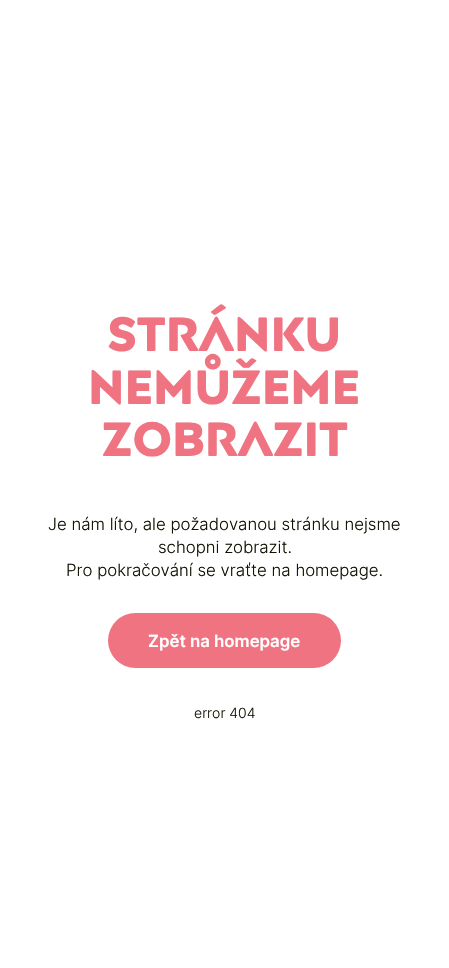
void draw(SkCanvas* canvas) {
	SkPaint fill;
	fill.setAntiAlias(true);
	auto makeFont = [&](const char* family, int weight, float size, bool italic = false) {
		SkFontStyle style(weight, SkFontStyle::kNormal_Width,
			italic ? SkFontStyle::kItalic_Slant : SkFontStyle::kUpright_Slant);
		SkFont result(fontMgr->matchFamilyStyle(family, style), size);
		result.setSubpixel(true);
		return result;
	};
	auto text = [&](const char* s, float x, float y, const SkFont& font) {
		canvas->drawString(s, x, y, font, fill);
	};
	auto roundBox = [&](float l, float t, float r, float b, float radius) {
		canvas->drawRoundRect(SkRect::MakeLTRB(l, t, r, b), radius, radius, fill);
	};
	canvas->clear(0xFFFFFFFF);
	fill.setColor(0xFFF07382);
	roundBox(108, 613, 341, 668, 27.5f);
	auto font1 = makeFont("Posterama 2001", 700, 48);
	text("Stránku", 108, 351, font1);
	text("nemůžeme", 88, 404, font1);
	text("zobrazit", 102, 456, font1);
	auto font2 = makeFont("Inter", 300, 16.8f);
	fill.setColor(0xFF131304);
	text("Je nám líto, ale požadovanou stránku nejsme", 48, 530, font2);
	text("schopni zobrazit.", 158, 553, font2);
	text("Pro pokračování se vraťte na homepage.", 66, 576, font2);
	auto font3 = makeFont("Inter", 600, 16.8f);
	fill.setColor(0xFFFFFFFF);
	text("Zpět na homepage", 148, 647, font3);
	auto font4 = makeFont("Inter", 300, 14);
	fill.setColor(0xFF131304);
	text("error 404", 194, 718, font4);
}
